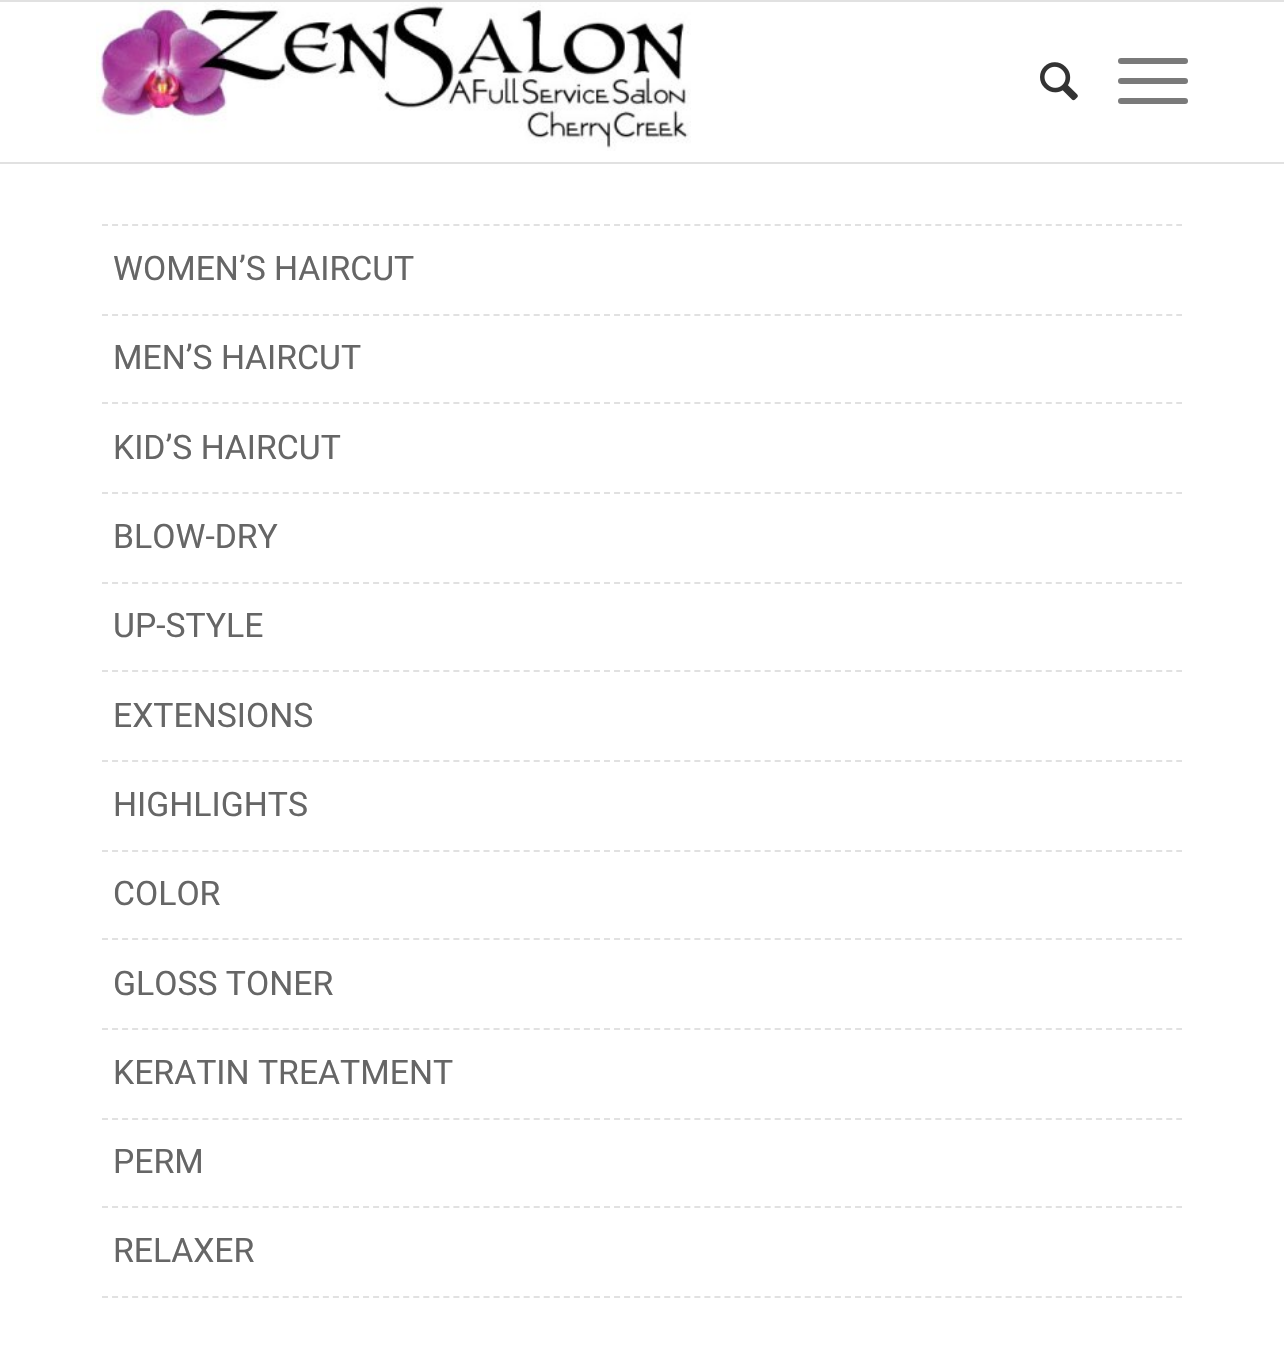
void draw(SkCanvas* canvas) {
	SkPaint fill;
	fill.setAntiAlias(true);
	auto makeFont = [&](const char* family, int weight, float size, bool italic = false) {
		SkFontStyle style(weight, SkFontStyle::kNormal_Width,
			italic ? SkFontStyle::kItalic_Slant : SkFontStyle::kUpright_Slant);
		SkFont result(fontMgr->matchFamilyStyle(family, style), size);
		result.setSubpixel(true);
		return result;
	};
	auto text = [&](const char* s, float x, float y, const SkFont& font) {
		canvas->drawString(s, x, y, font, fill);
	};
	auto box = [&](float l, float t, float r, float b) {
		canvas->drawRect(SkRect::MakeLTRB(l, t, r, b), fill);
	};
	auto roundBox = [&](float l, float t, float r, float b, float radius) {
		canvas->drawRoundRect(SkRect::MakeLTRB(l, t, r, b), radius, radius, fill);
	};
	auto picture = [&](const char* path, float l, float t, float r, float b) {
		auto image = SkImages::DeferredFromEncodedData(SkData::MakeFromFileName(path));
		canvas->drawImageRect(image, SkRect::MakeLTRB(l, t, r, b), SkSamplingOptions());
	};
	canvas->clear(0xFFFFFFFF);
	fill.setColor(0xFFE1E1E1);
	box(0, 0, 1284, 2);
	box(0, 162, 1284, 164);
	picture("image0.png", 96, 2, 691, 151);
	picture("image1.png", 1040, 62, 1078, 101);
	fill.setColor(0xFF7A7A7A);
	roundBox(1118, 78, 1188, 84, 3);
	roundBox(1118, 58, 1188, 64, 3);
	roundBox(1118, 98, 1188, 104, 3);
	fill.setStyle(SkPaint::kStroke_Style);
	fill.setStrokeWidth(2);
	fill.setColor(0xFFE1E1E1);
	fill.setPathEffect(SkDashPathEffect::Make({{6, 4.04f}}, 0));
	canvas->drawPath(SkPathBuilder().moveTo(102, 225).lineTo(1182, 225).detach(), fill);
	fill.setPathEffect(nullptr);
	fill.setPathEffect(SkDashPathEffect::Make({{6, 4.04f}}, 0));
	canvas->drawPath(SkPathBuilder().moveTo(102, 315).lineTo(1182, 315).detach(), fill);
	fill.setPathEffect(nullptr);
	fill.setPathEffect(SkDashPathEffect::Make({{6, 4.04f}}, 0));
	canvas->drawPath(SkPathBuilder().moveTo(102, 403).lineTo(1182, 403).detach(), fill);
	fill.setPathEffect(nullptr);
	fill.setPathEffect(SkDashPathEffect::Make({{6, 4.04f}}, 0));
	canvas->drawPath(SkPathBuilder().moveTo(102, 493).lineTo(1182, 493).detach(), fill);
	fill.setPathEffect(nullptr);
	fill.setPathEffect(SkDashPathEffect::Make({{6, 4.04f}}, 0));
	canvas->drawPath(SkPathBuilder().moveTo(102, 583).lineTo(1182, 583).detach(), fill);
	fill.setPathEffect(nullptr);
	fill.setPathEffect(SkDashPathEffect::Make({{6, 4.04f}}, 0));
	canvas->drawPath(SkPathBuilder().moveTo(102, 671).lineTo(1182, 671).detach(), fill);
	fill.setPathEffect(nullptr);
	fill.setPathEffect(SkDashPathEffect::Make({{6, 4.04f}}, 0));
	canvas->drawPath(SkPathBuilder().moveTo(102, 761).lineTo(1182, 761).detach(), fill);
	fill.setPathEffect(nullptr);
	fill.setPathEffect(SkDashPathEffect::Make({{6, 4.04f}}, 0));
	canvas->drawPath(SkPathBuilder().moveTo(102, 851).lineTo(1182, 851).detach(), fill);
	fill.setPathEffect(nullptr);
	fill.setPathEffect(SkDashPathEffect::Make({{6, 4.04f}}, 0));
	canvas->drawPath(SkPathBuilder().moveTo(102, 939).lineTo(1182, 939).detach(), fill);
	fill.setPathEffect(nullptr);
	fill.setPathEffect(SkDashPathEffect::Make({{6, 4.04f}}, 0));
	canvas->drawPath(SkPathBuilder().moveTo(102, 1029).lineTo(1182, 1029).detach(), fill);
	fill.setPathEffect(nullptr);
	fill.setPathEffect(SkDashPathEffect::Make({{6, 4.04f}}, 0));
	canvas->drawPath(SkPathBuilder().moveTo(102, 1119).lineTo(1182, 1119).detach(), fill);
	fill.setPathEffect(nullptr);
	fill.setPathEffect(SkDashPathEffect::Make({{6, 4.04f}}, 0));
	canvas->drawPath(SkPathBuilder().moveTo(102, 1207).lineTo(1182, 1207).detach(), fill);
	fill.setPathEffect(nullptr);
	fill.setPathEffect(SkDashPathEffect::Make({{6, 4.04f}}, 0));
	canvas->drawPath(SkPathBuilder().moveTo(102, 1297).lineTo(1182, 1297).detach(), fill);
	fill.setPathEffect(nullptr);
	auto font1 = makeFont("Heebo", 400, 33.75f);
	fill.setStyle(SkPaint::kFill_Style);
	fill.setColor(0xFF666666);
	text("WOMEN’S HAIRCUT", 113, 280, font1);
	text("MEN’S HAIRCUT", 113, 369, font1);
	text("KID’S HAIRCUT", 113, 459, font1);
	text("BLOW-DRY", 113, 548, font1);
	text("UP-STYLE", 113, 637, font1);
	text("EXTENSIONS", 113, 727, font1);
	text("HIGHLIGHTS", 113, 816, font1);
	text("COLOR", 113, 905, font1);
	text("GLOSS TONER", 113, 995, font1);
	text("KERATIN TREATMENT", 113, 1084, font1);
	text("PERM", 113, 1173, font1);
	text("RELAXER", 113, 1262, font1);
}
